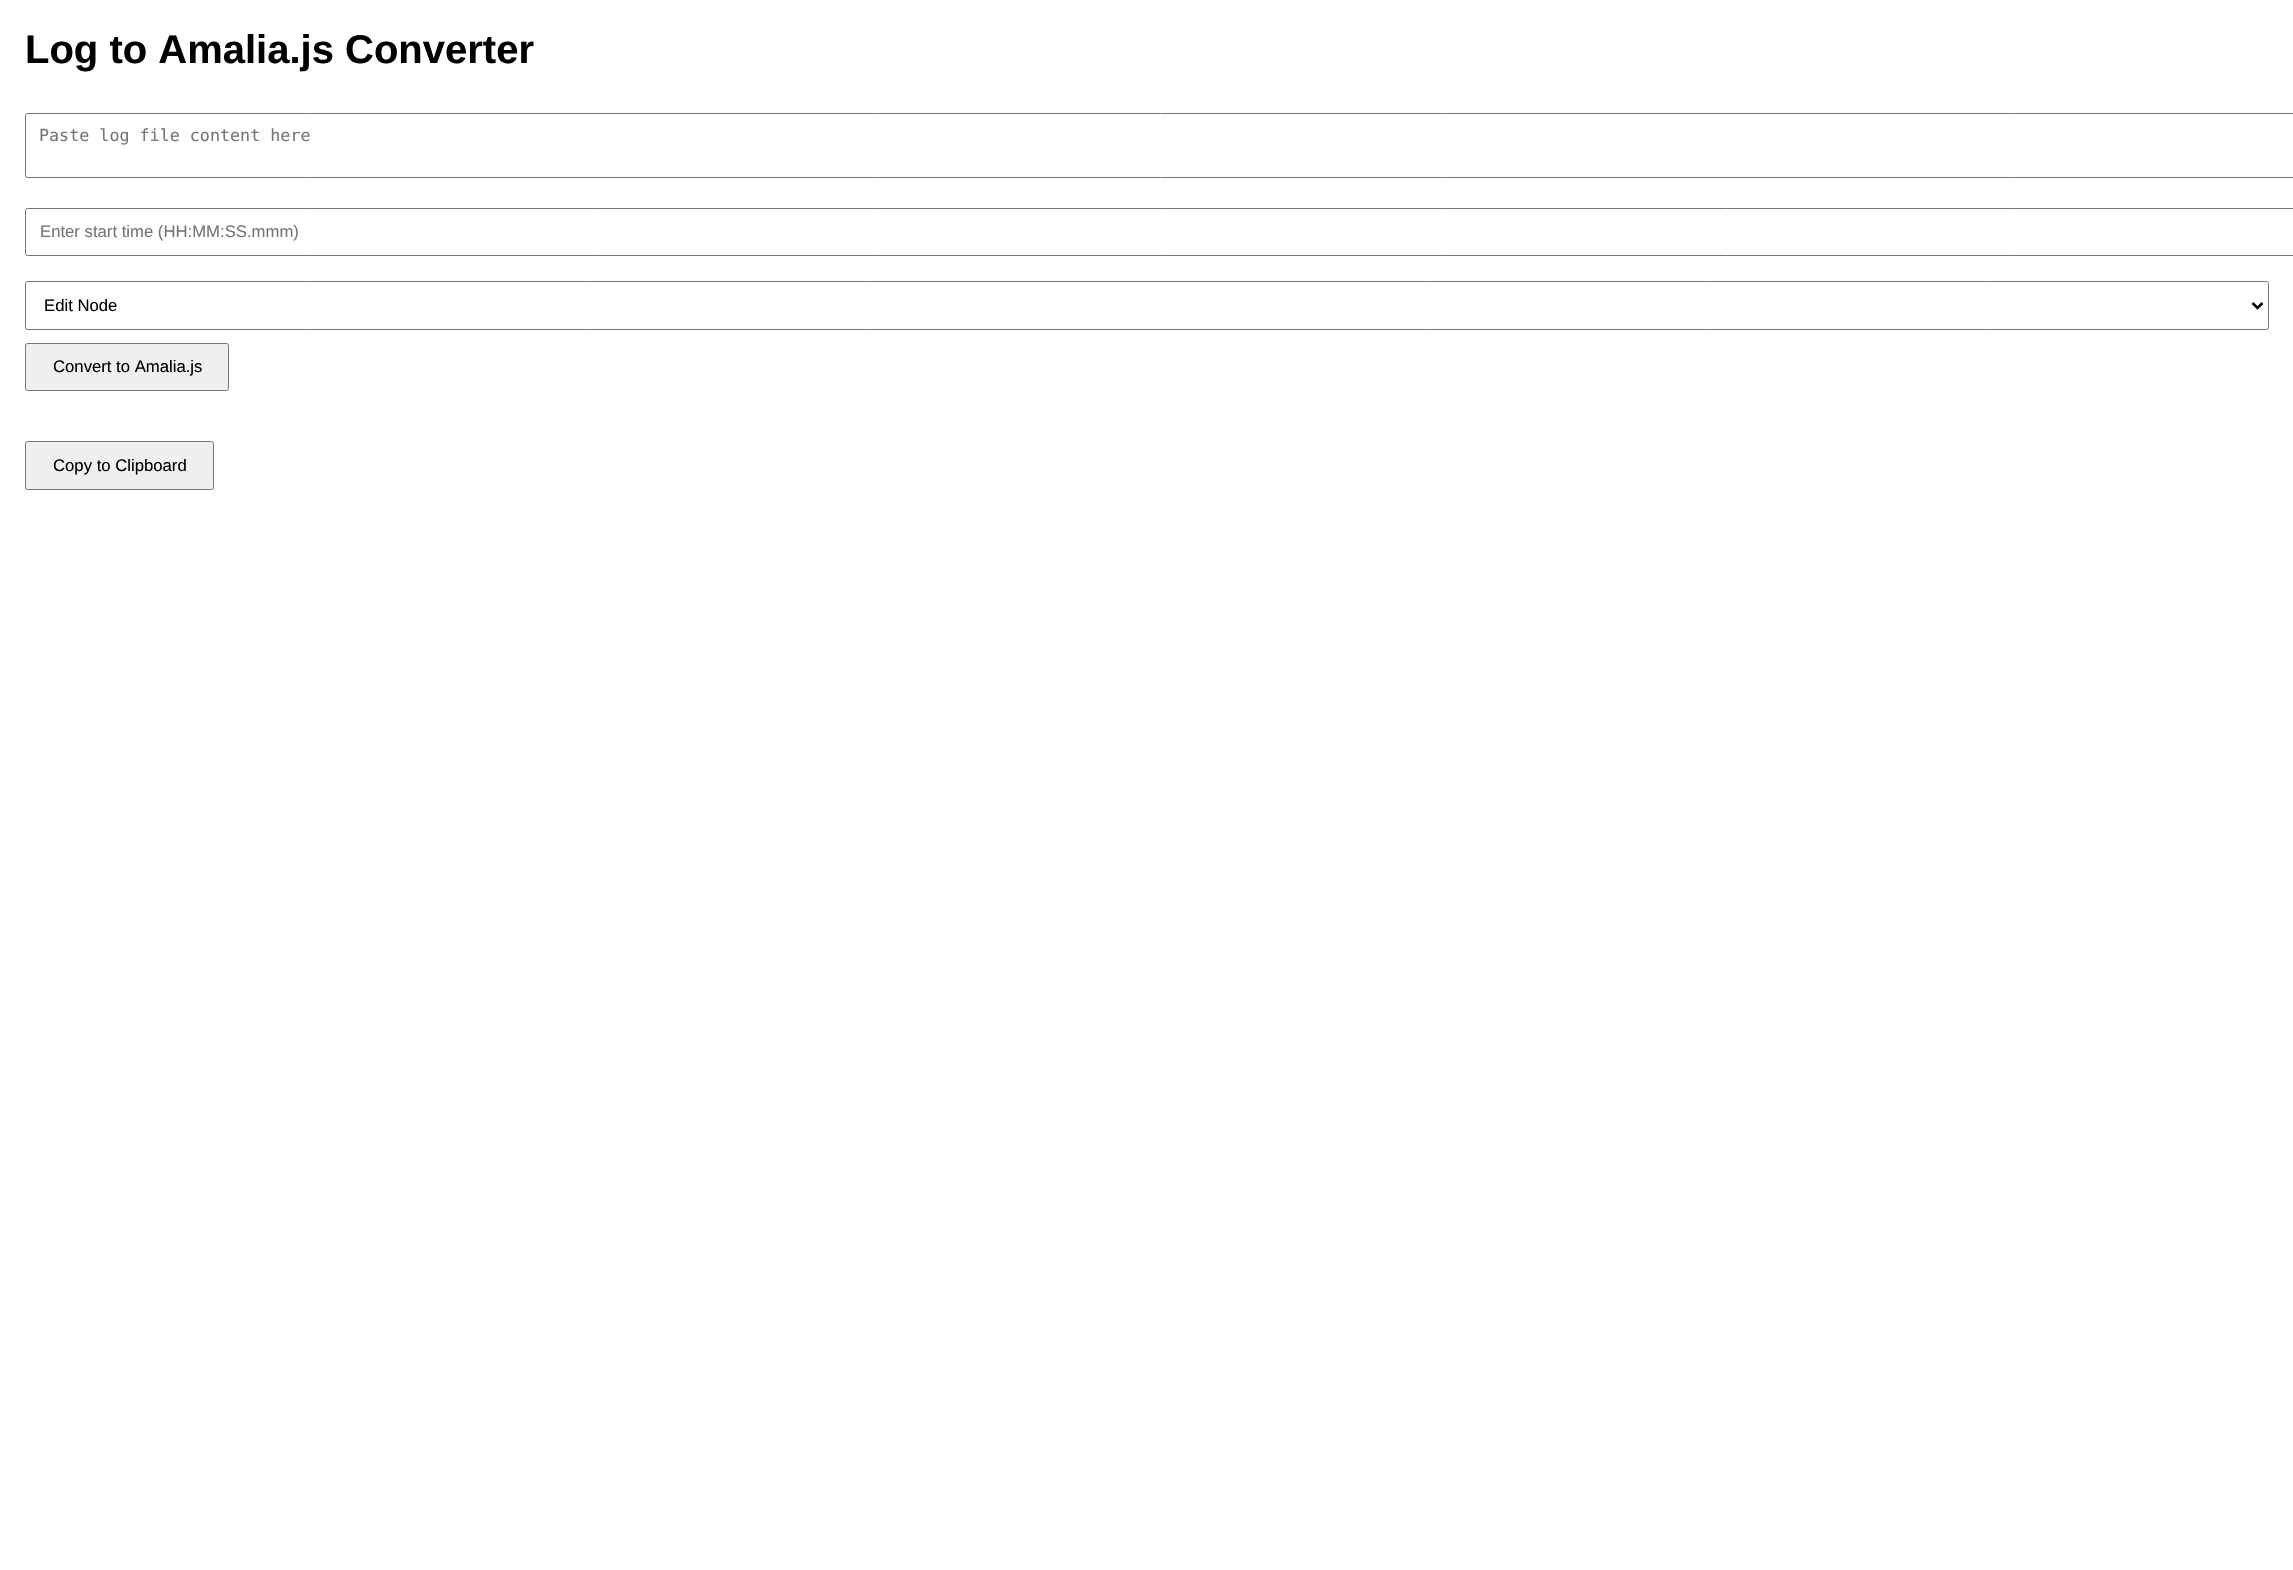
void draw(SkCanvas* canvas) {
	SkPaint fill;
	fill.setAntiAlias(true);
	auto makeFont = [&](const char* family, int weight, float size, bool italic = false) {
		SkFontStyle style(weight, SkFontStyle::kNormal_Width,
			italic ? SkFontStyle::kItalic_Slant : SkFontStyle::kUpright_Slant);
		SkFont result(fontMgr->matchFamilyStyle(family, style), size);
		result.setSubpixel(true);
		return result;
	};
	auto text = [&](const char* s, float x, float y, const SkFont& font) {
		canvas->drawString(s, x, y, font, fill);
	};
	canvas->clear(0xFFFFFFFF);
	fill.setStyle(SkPaint::kStroke_Style);
	fill.setStrokeWidth(1);
	fill.setColor(0xFF767676);
	canvas->drawRoundRect(SkRect::MakeLTRB(25.5f, 113.5f, 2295.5f, 177.5f), 2, 2, fill);
	canvas->drawRoundRect(SkRect::MakeLTRB(25.5f, 208.5f, 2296.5f, 255.5f), 2, 2, fill);
	canvas->drawRoundRect(SkRect::MakeLTRB(25.5f, 281.5f, 2268.5f, 329.5f), 2, 2, fill);
	fill.setStrokeWidth(2.5f);
	fill.setColor(0xFF000000);
	canvas->drawPath(SkPathBuilder().moveTo(2252.5f, 303).lineTo(2257.5f, 308).lineTo(2262.5f, 303).detach(), fill);
	fill.setStyle(SkPaint::kFill_Style);
	fill.setColor(0xFFEFEFEF);
	canvas->drawRoundRect(SkRect::MakeLTRB(25.5f, 343.5f, 228.5f, 390.5f), 2, 2, fill);
	fill.setStyle(SkPaint::kStroke_Style);
	fill.setStrokeWidth(1);
	fill.setColor(0xFF767676);
	canvas->drawRoundRect(SkRect::MakeLTRB(25.5f, 343.5f, 228.5f, 390.5f), 2, 2, fill);
	fill.setStyle(SkPaint::kFill_Style);
	fill.setColor(0xFFEFEFEF);
	canvas->drawRoundRect(SkRect::MakeLTRB(25.5f, 441.5f, 213.5f, 489.5f), 2, 2, fill);
	fill.setStyle(SkPaint::kStroke_Style);
	fill.setColor(0xFF767676);
	canvas->drawRoundRect(SkRect::MakeLTRB(25.5f, 441.5f, 213.5f, 489.5f), 2, 2, fill);
	auto font1 = makeFont("Liberation Sans", 700, 40);
	fill.setStyle(SkPaint::kFill_Style);
	fill.setColor(0xFF000000);
	text("Log to Amalia.js Converter", 25, 63, font1);
	auto font2 = makeFont("DejaVu Sans Mono", 400, 16.7f);
	fill.setColor(0xFF757575);
	text("Paste log file content here", 39, 141, font2);
	auto font3 = makeFont("Liberation Sans", 400, 16.7f);
	text("Enter start time (HH:MM:SS.mmm)", 40, 237, font3);
	fill.setColor(0xFF000000);
	text("Edit Node", 44, 311, font3);
	text("Convert to Amalia.js", 53, 372, font3);
	text("Copy to Clipboard", 53, 471, font3);
}
